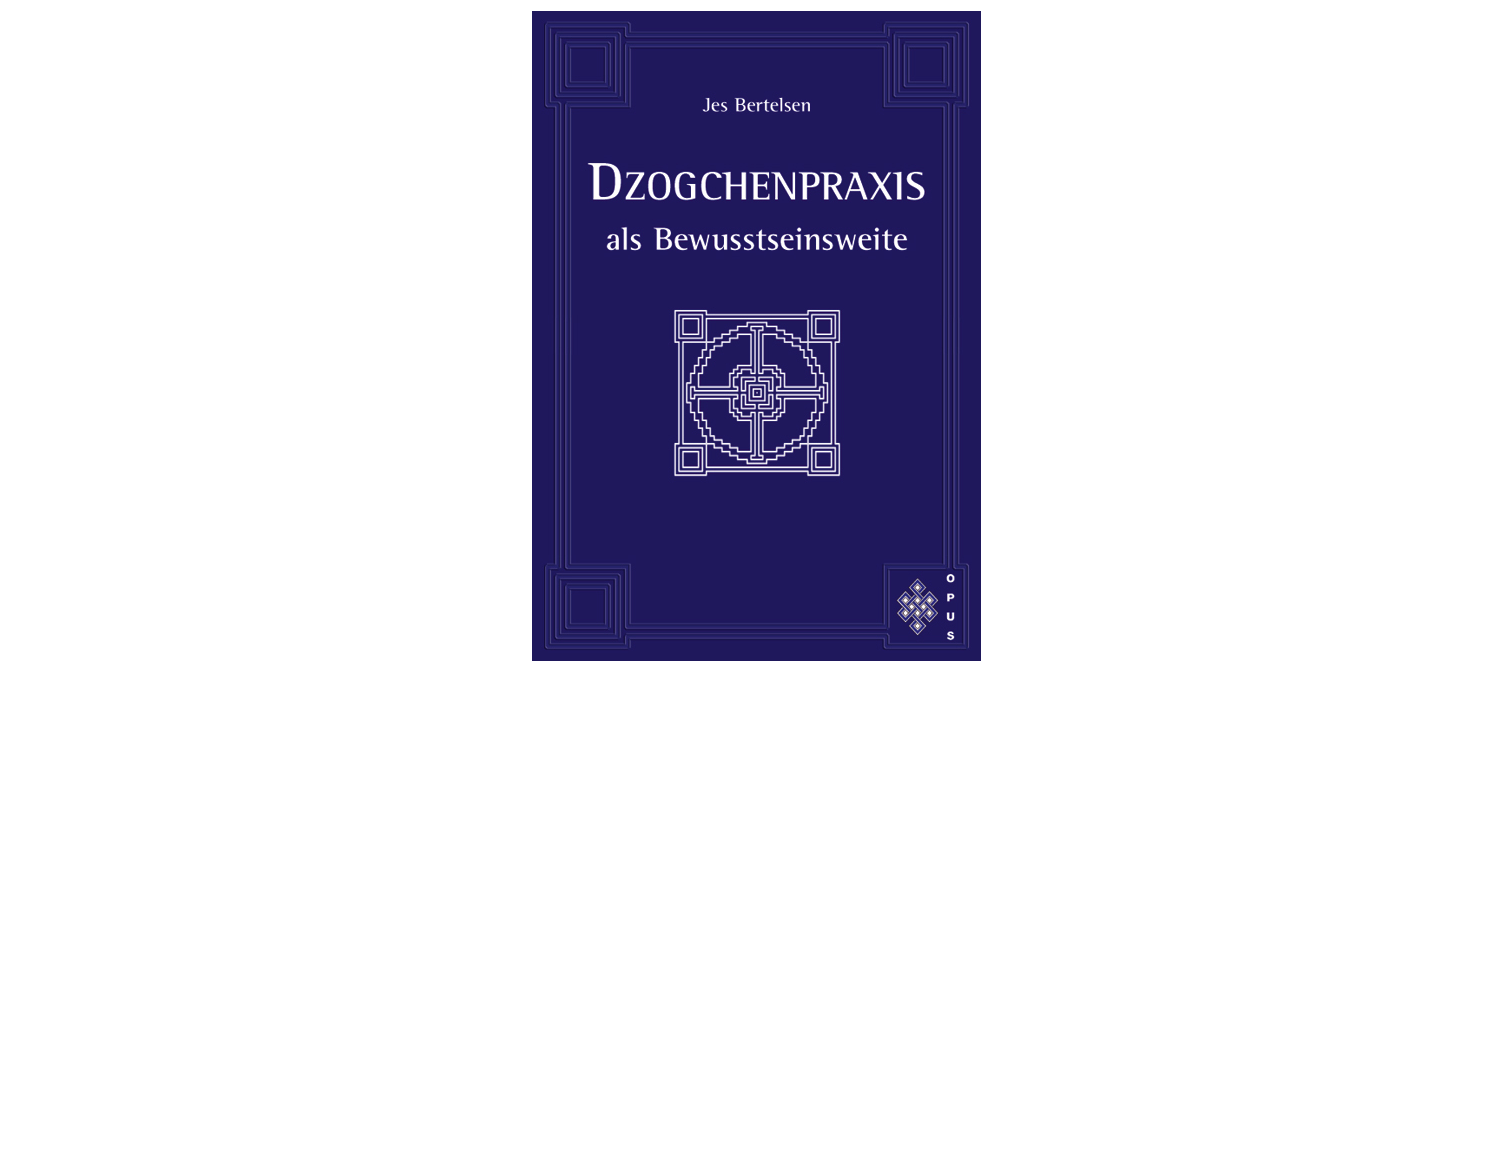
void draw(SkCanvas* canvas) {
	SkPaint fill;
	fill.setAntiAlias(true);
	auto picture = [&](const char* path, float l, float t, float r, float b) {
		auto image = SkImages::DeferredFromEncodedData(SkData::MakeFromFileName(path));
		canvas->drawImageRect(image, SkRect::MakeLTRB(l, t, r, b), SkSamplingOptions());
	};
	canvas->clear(0xFFFFFFFF);
	picture("image0.png", 532, 11, 981, 661);
}
